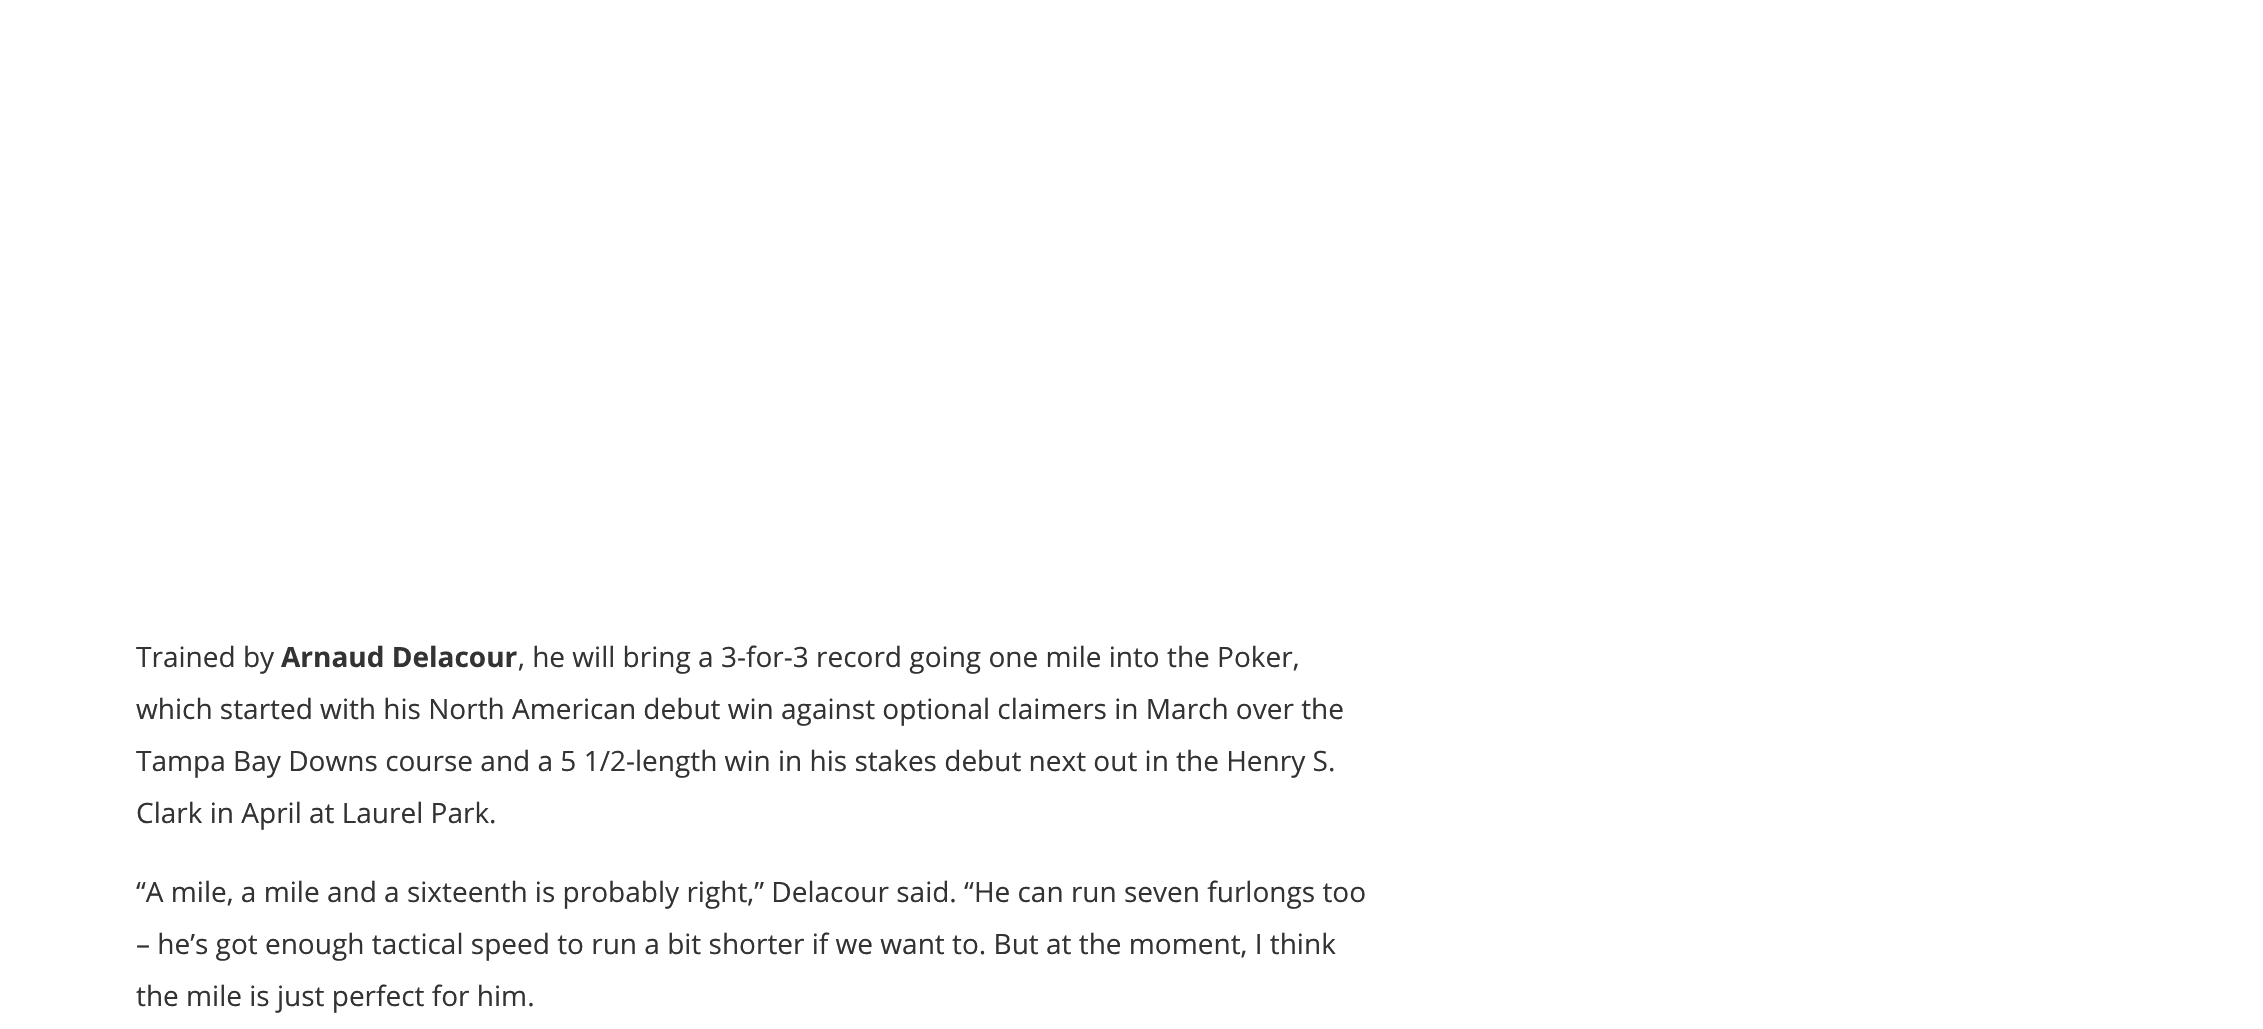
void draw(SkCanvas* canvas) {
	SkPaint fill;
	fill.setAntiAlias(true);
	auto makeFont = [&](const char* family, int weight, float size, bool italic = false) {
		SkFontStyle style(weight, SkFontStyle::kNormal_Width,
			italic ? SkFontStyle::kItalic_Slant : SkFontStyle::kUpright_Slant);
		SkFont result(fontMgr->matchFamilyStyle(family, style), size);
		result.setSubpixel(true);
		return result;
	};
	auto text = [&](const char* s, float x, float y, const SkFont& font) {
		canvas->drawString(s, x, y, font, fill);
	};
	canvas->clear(0xFFFFFFFF);
	auto font1 = makeFont("Open Sans", 400, 28);
	fill.setColor(0xFF333333);
	text("Trained by", 136, 667, font1);
	auto font2 = makeFont("Open Sans", 700, 28);
	text("Arnaud Delacour", 281, 667, font2);
	text(", he will bring a 3-for-3 record going one mile into the Poker,", 518, 667, font1);
	text("which started with his North American debut win against optional claimers in March over the", 136, 719, font1);
	text("Tampa Bay Downs course and a 5 1/2-length win in his stakes debut next out in the Henry S.", 136, 771, font1);
	text("Clark in April at Laurel Park.", 136, 823, font1);
	text("“A mile, a mile and a sixteenth is probably right,” Delacour said. “He can run seven furlongs too", 136, 902, font1);
	text("– he’s got enough tactical speed to run a bit shorter if we want to. But at the moment, I think", 136, 954, font1);
	text("the mile is just perfect for him.", 136, 1006, font1);
}
